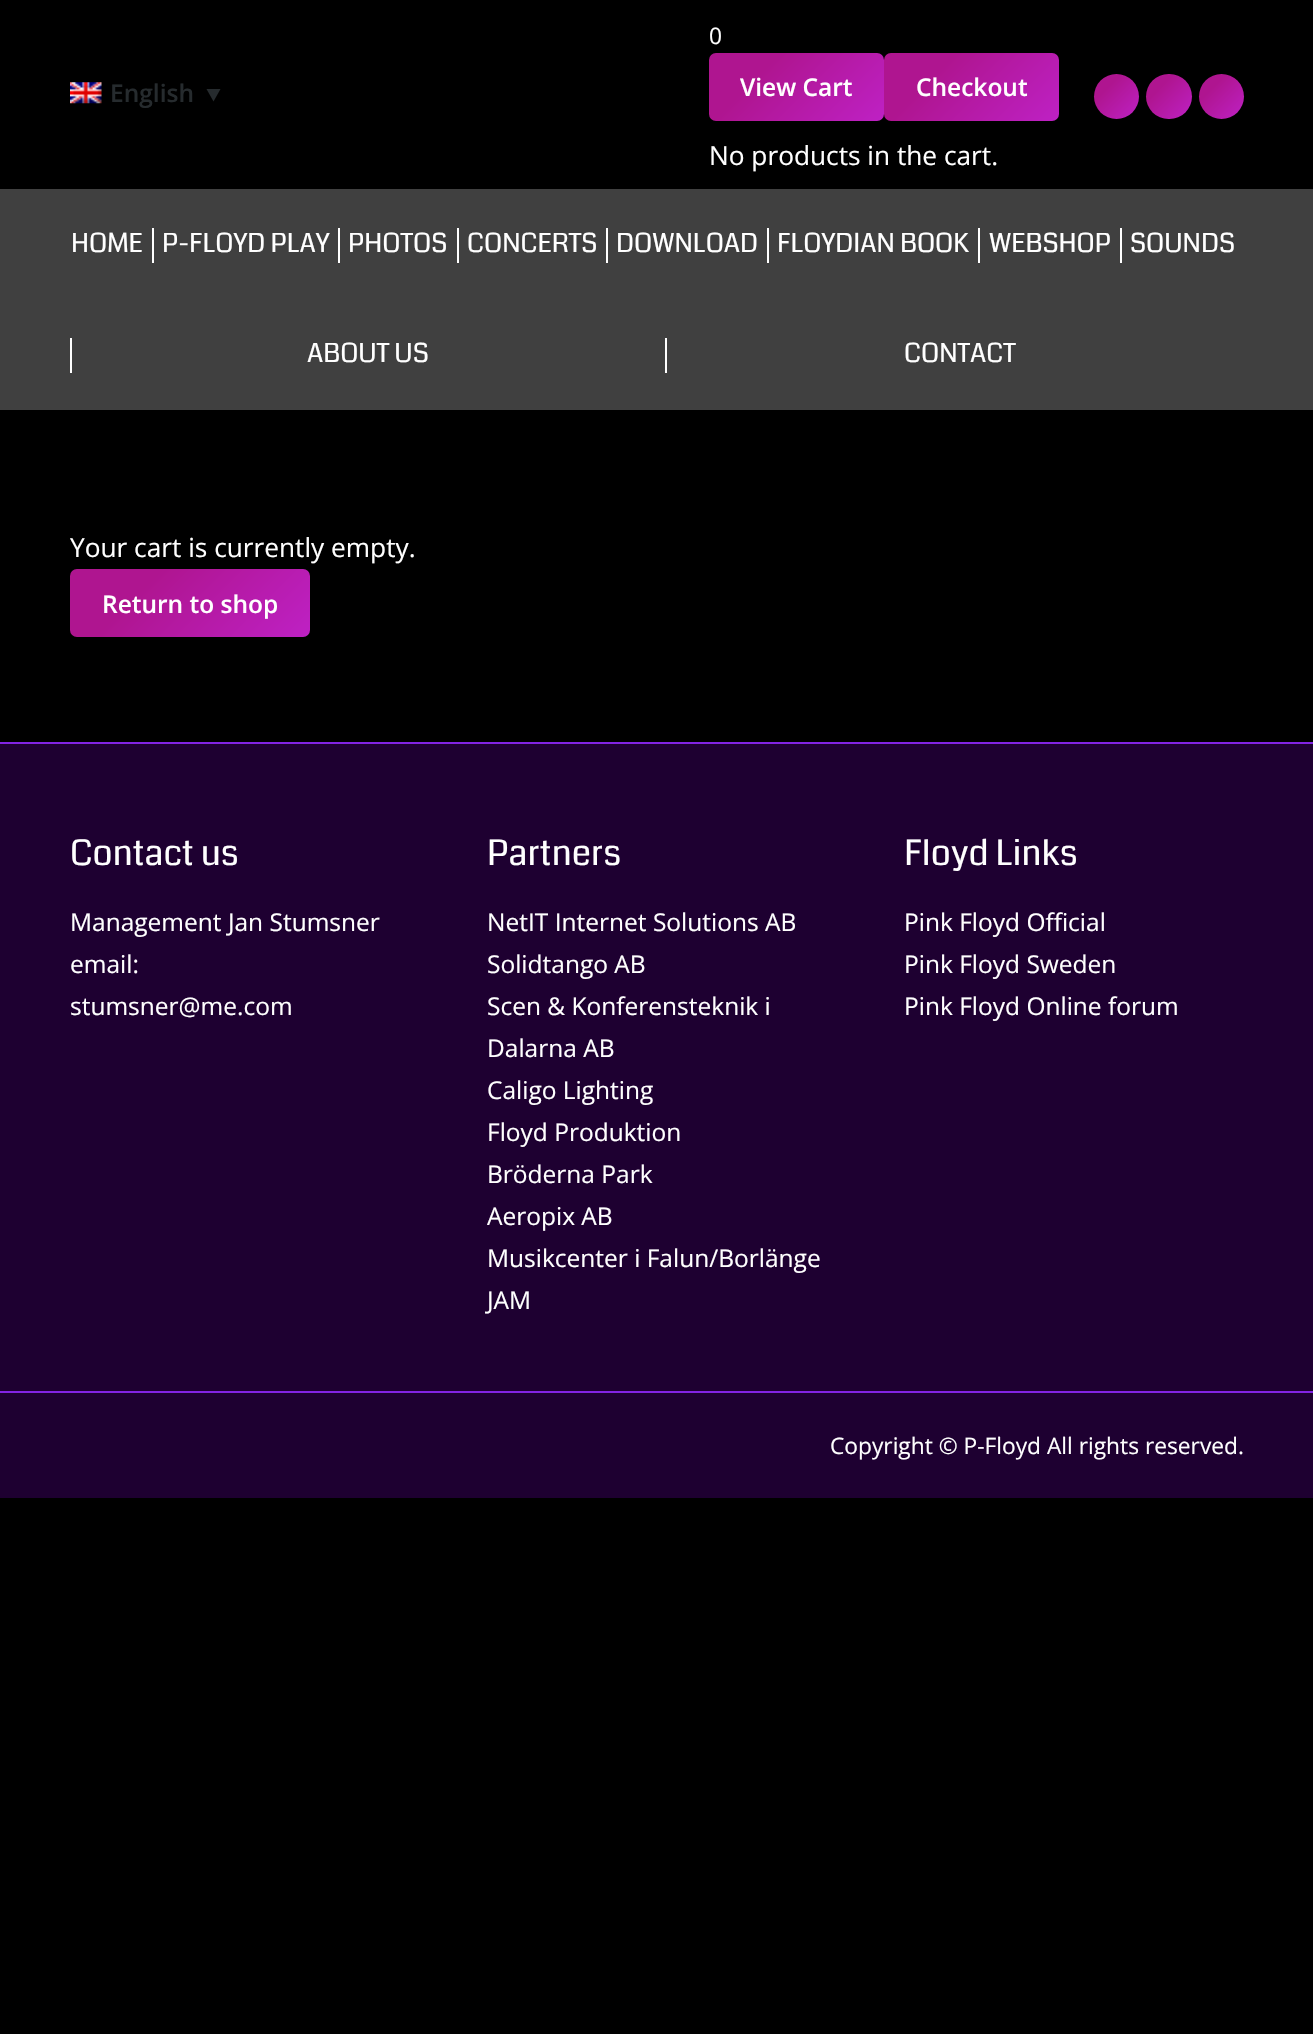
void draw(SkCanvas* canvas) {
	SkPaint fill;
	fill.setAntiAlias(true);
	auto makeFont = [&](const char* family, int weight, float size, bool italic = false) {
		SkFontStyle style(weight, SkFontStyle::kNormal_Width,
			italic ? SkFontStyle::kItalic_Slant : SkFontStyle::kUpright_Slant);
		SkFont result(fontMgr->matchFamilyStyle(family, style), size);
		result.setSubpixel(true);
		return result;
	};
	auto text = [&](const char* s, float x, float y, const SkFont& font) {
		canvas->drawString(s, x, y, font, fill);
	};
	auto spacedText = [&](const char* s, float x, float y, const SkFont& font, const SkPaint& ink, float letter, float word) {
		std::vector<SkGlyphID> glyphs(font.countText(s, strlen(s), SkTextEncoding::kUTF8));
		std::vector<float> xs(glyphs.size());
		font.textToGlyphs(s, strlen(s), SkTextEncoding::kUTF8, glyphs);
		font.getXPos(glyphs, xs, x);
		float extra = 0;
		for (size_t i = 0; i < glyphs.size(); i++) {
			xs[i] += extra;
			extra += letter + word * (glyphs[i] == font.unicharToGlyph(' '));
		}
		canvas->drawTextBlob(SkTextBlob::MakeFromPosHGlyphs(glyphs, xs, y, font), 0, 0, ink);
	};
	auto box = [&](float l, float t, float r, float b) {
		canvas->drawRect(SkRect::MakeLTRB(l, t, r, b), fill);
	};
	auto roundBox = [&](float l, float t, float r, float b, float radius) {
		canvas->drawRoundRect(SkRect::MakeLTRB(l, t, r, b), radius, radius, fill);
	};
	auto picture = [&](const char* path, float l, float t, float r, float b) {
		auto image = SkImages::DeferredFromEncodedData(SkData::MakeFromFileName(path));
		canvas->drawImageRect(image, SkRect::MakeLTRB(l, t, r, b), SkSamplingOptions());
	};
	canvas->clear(0xFF000000);
	picture("image0.png", 70, 82, 102, 104);
	fill.setColor(0xFF262B2E);
	canvas->drawPath(SkPathBuilder().moveTo(206.5f, 89).lineTo(220.5f, 89).lineTo(213.5f, 101.5f).close().detach(), fill);
	{
		const SkColor colors[] = {0xFFAF1590, 0xFFBE21C4};
		const float stops[] = {0.3f, 1};
		const SkPoint ends[] = {{735, 26}, {857, 147}};
		fill.setShader(SkGradientShader::MakeLinear(ends, colors, stops, 2, SkTileMode::kClamp));
		fill.setAlpha(255);
	}
	roundBox(709, 53, 884, 121, 7);
	{
		const SkColor colors[] = {0xFFAF1590, 0xFFBE21C4};
		const float stops[] = {0.3f, 1};
		const SkPoint ends[] = {{910, 26}, {1032, 147}};
		fill.setShader(SkGradientShader::MakeLinear(ends, colors, stops, 2, SkTileMode::kClamp));
		fill.setAlpha(255);
	}
	roundBox(884, 53, 1059, 121, 7);
	{
		const SkColor colors[] = {0xFFAF1590, 0xFFBE21C4};
		const float stops[] = {0.3f, 1};
		const SkPoint ends[] = {{1094, 74}, {1139, 119}};
		fill.setShader(SkGradientShader::MakeLinear(ends, colors, stops, 2, SkTileMode::kClamp));
		fill.setAlpha(255);
	}
	canvas->drawCircle(1116.5f, 96.5f, 22.5f, fill);
	{
		const SkColor colors[] = {0xFFAF1590, 0xFFBE21C4};
		const float stops[] = {0.3f, 1};
		const SkPoint ends[] = {{1146, 74}, {1192, 119}};
		fill.setShader(SkGradientShader::MakeLinear(ends, colors, stops, 2, SkTileMode::kClamp));
		fill.setAlpha(255);
	}
	roundBox(1146, 74, 1192, 119, 22.5f);
	{
		const SkColor colors[] = {0xFFAF1590, 0xFFBE21C4};
		const float stops[] = {0.3f, 1};
		const SkPoint ends[] = {{1199, 74}, {1244, 119}};
		fill.setShader(SkGradientShader::MakeLinear(ends, colors, stops, 2, SkTileMode::kClamp));
		fill.setAlpha(255);
	}
	canvas->drawCircle(1221.5f, 96.5f, 22.5f, fill);
	fill.setShader(nullptr);
	fill.setColor(0xFF404040);
	box(0, 189, 1313, 410);
	fill.setColor(0xFFFFFFFF);
	box(152, 228, 154, 263);
	box(338, 228, 340, 263);
	box(457, 228, 459, 263);
	box(606, 228, 608, 263);
	box(767, 228, 769, 263);
	box(978, 228, 980, 263);
	box(1120, 228, 1122, 263);
	box(70, 338, 72, 373);
	box(665, 338, 667, 373);
	{
		const SkColor colors[] = {0xFFAF1590, 0xFFBE21C4};
		const float stops[] = {0.3f, 1};
		const SkPoint ends[] = {{113, 526}, {267, 680}};
		fill.setShader(SkGradientShader::MakeLinear(ends, colors, stops, 2, SkTileMode::kClamp));
		fill.setAlpha(255);
	}
	roundBox(70, 569, 310, 637, 7);
	fill.setShader(nullptr);
	fill.setColor(0xFF1E0031);
	box(0, 744, 1313, 1498);
	fill.setColor(0xFF8224E3);
	box(0, 742, 1313, 744);
	box(0, 1391, 1313, 1393);
	auto font1 = makeFont("Open Sans", 600, 24.5f);
	fill.setColor(0xFF262B2E);
	text("English", 110, 102, font1);
	auto font2 = makeFont("Open Sans", 400, 22.75f);
	fill.setColor(0xFFFFFFFF);
	spacedText("0", 709, 44, font2, fill, -7, 0);
	text("View Cart", 740, 96, font1);
	text("Checkout", 916, 96, font1);
	auto font3 = makeFont("Open Sans", 400, 26.25f);
	text("No products in the cart.", 709, 165, font3);
	auto font4 = makeFont("Coda", 400, 26.25f);
	text("HOME", 71, 252, font4);
	text("P-FLOYD PLAY", 162, 252, font4);
	text("PHOTOS", 348, 252, font4);
	text("CONCERTS", 467, 252, font4);
	text("DOWNLOAD", 616, 252, font4);
	text("FLOYDIAN BOOK", 777, 252, font4);
	text("WEBSHOP", 989, 252, font4);
	text("SOUNDS", 1130, 252, font4);
	text("ABOUT US", 307, 362, font4);
	text("CONTACT", 904, 362, font4);
	text("Your cart is currently empty.", 70, 557, font3);
	text("Return to shop", 102, 613, font1);
	auto font5 = makeFont("Coda", 400, 35);
	text("Contact us", 70, 865, font5);
	auto font6 = makeFont("Open Sans", 400, 24.5f);
	text("Management Jan Stumsner", 70, 931, font6);
	text("email:", 70, 973, font6);
	text("stumsner@me.com", 70, 1015, font6);
	text("Partners", 487, 865, font5);
	text("NetIT Internet Solutions AB", 487, 931, font6);
	text("Solidtango AB", 487, 973, font6);
	text("Scen & Konferensteknik i", 487, 1015, font6);
	text("Dalarna AB", 487, 1057, font6);
	text("Caligo Lighting", 487, 1099, font6);
	text("Floyd Produktion", 487, 1141, font6);
	text("Bröderna Park", 487, 1183, font6);
	text("Aeropix AB", 487, 1225, font6);
	text("Musikcenter i Falun/Borlänge", 487, 1267, font6);
	text("JAM", 487, 1309, font6);
	text("Floyd Links", 904, 865, font5);
	text("Pink Floyd Official", 904, 931, font6);
	text("Pink Floyd Sweden", 904, 973, font6);
	text("Pink Floyd Online forum", 904, 1015, font6);
	text("Copyright © P-Floyd All rights reserved.", 830, 1454, font2);
}
